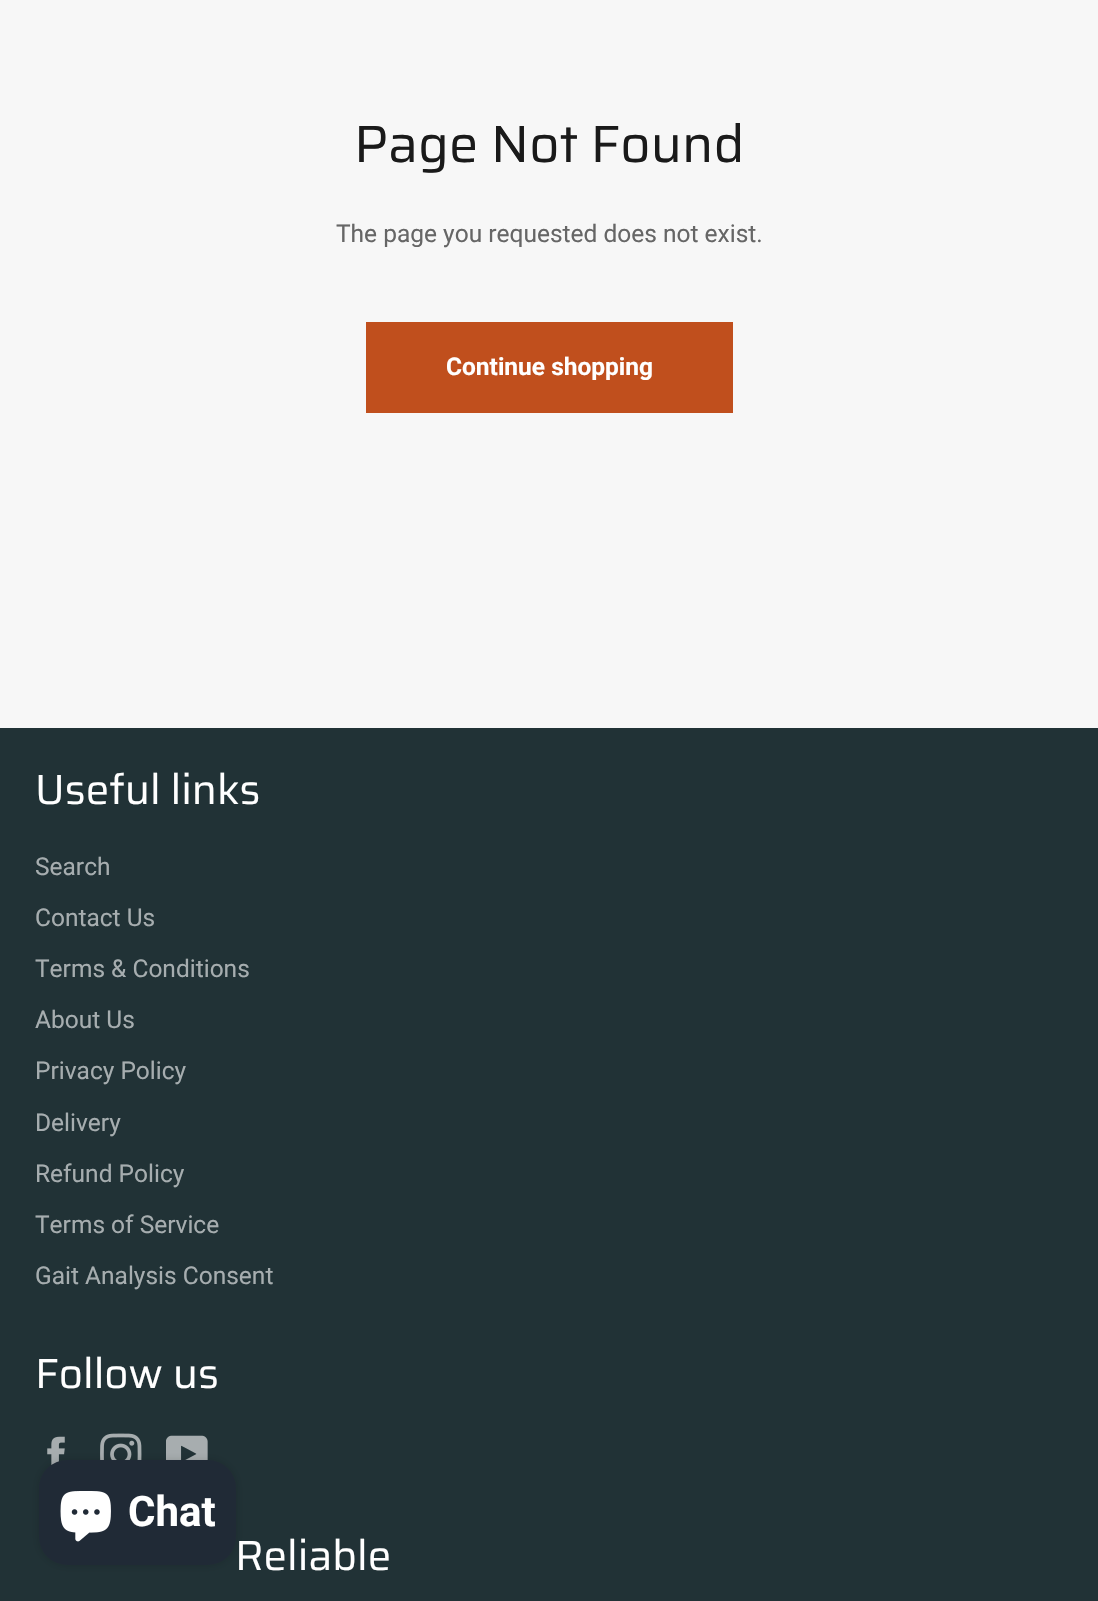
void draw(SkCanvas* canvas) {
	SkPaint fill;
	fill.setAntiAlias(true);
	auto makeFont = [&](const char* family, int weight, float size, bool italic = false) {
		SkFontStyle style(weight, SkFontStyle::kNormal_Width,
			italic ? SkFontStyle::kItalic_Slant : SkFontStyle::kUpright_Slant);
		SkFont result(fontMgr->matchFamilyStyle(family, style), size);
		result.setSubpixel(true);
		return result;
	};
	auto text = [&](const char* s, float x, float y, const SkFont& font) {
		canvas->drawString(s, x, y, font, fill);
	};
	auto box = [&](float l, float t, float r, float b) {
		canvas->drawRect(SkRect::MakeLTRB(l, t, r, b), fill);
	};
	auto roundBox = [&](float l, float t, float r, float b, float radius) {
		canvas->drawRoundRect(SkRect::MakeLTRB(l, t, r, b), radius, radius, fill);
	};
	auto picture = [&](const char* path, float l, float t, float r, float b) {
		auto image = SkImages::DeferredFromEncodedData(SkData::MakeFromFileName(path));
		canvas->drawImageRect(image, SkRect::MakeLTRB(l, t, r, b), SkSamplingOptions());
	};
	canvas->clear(0xFFF7F7F7);
	fill.setColor(0xFFC04F1D);
	box(366, 322, 733, 413);
	fill.setColor(0xFF213236);
	box(0, 728, 1098, 1601);
	picture("image0.png", 47, 1436, 65, 1465);
	picture("image1.png", 100, 1433, 142, 1460);
	picture("image2.png", 166, 1435, 208, 1460);
	fill.setColor(0x26000000);
	fill.setMaskFilter(SkMaskFilter::MakeBlur(kNormal_SkBlurStyle, 4.5f));
	canvas->drawRoundRect(SkRect::MakeLTRB(39, 1460, 236, 1565), 28, 28, fill);
	fill.setMaskFilter(nullptr);
	fill.setColor(0xFF202A36);
	roundBox(39, 1460, 236, 1565, 28);
	picture("image3.png", 60, 1491, 111, 1542);
	auto font1 = makeFont("Saira", 400, 52.5f);
	fill.setColor(0xFF1A1A1A);
	text("Page Not Found", 354, 162, font1);
	auto font2 = makeFont("Roboto", 400, 24.5f);
	fill.setColor(0xFF666666);
	text("The page you requested does not exist.", 336, 242, font2);
	auto font3 = makeFont("Roboto", 700, 24.5f);
	fill.setColor(0xFFFFFFFF);
	text("Continue shopping", 446, 375, font3);
	auto font4 = makeFont("Saira", 400, 42);
	text("Useful links", 35, 804, font4);
	fill.setColor(0xFFA6ADAF);
	text("Search", 35, 875, font2);
	text("Contact Us", 35, 926, font2);
	text("Terms & Conditions", 35, 977, font2);
	text("About Us", 35, 1028, font2);
	text("Privacy Policy", 35, 1079, font2);
	text("Delivery", 35, 1131, font2);
	text("Refund Policy", 35, 1182, font2);
	text("Terms of Service", 35, 1233, font2);
	text("Gait Analysis Consent", 35, 1284, font2);
	fill.setColor(0xFFFFFFFF);
	text("Follow us", 35, 1388, font4);
	text("Reliable", 235, 1570, font4);
	auto font5 = makeFont("Roboto", 700, 42);
	text("Chat", 128, 1526, font5);
}
